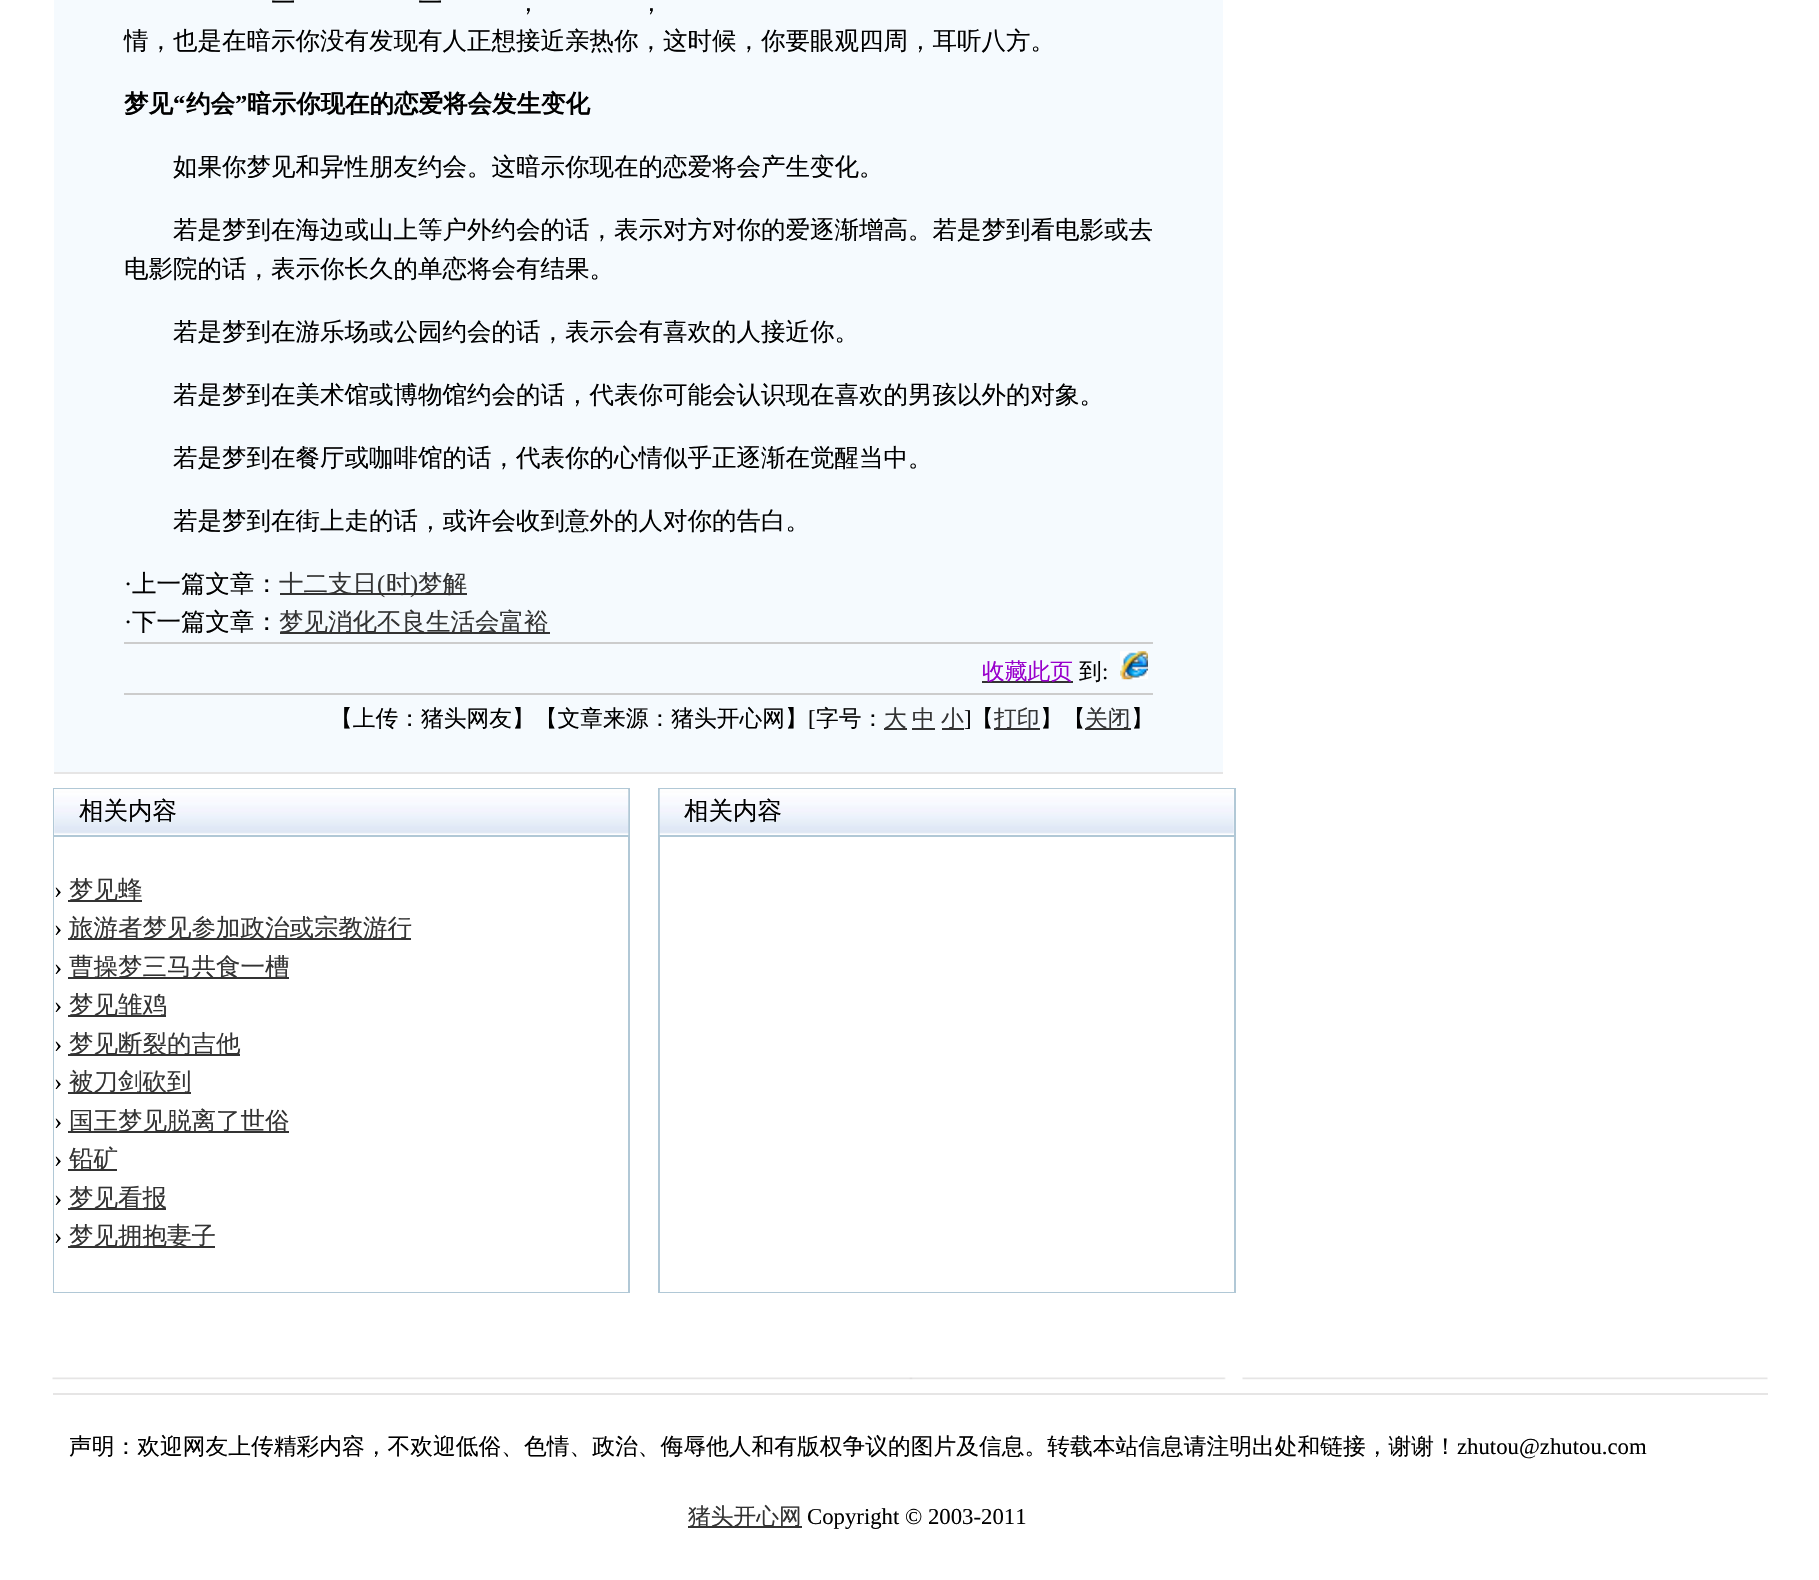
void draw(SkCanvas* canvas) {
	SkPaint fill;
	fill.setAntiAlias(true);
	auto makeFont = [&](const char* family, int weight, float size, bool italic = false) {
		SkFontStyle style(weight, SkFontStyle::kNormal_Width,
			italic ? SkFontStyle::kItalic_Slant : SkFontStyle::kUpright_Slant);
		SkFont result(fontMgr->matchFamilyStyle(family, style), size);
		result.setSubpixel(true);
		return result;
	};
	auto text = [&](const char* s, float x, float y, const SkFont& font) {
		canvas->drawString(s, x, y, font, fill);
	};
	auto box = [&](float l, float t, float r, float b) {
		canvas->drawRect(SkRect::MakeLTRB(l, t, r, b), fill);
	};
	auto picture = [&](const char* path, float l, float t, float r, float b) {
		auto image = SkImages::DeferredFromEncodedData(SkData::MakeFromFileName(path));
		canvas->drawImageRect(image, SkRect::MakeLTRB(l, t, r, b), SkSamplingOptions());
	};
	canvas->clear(0xFFFFFFFF);
	fill.setColor(0xFFF5FAFE);
	box(54, 0, 1223, 772);
	fill.setColor(0xFF333333);
	box(280, 593, 467, 595);
	box(280, 632, 550, 634);
	fill.setColor(0xFFCCCCCC);
	box(124, 642, 1153, 644);
	fill.setColor(0xFF333333);
	box(982, 681, 1073, 683);
	picture("image0.png", 1120, 651, 1148, 680);
	fill.setColor(0xFFCCCCCC);
	box(124, 693, 1153, 695);
	fill.setColor(0xFF333333);
	box(884, 728, 907, 730);
	box(912, 728, 935, 730);
	box(942, 728, 964, 730);
	box(994, 728, 1040, 730);
	box(1085, 728, 1131, 730);
	fill.setColor(0xFFE6E5E5);
	box(54, 772, 1223, 774);
	fill.setColor(0xFFB1C8D6);
	box(53, 788, 630, 1293);
	fill.setColor(0xFFFFFFFF);
	box(54, 789, 628, 835);
	picture("image1.png", 54, 789, 629, 835);
	box(54, 837, 628, 1292);
	fill.setColor(0xFF333333);
	box(68, 900, 142, 902);
	box(68, 938, 411, 940);
	box(68, 977, 289, 979);
	box(68, 1015, 166, 1017);
	box(68, 1054, 240, 1056);
	box(68, 1092, 191, 1094);
	box(68, 1131, 289, 1133);
	box(68, 1169, 117, 1171);
	box(68, 1208, 166, 1210);
	box(68, 1246, 215, 1248);
	fill.setColor(0xFFB1C8D6);
	box(658, 788, 1236, 1293);
	fill.setColor(0xFFFFFFFF);
	box(660, 789, 1234, 835);
	picture("image2.png", 659, 789, 1234, 835);
	box(660, 837, 1234, 1292);
	picture("image3.png", 52, 1377, 1768, 1380);
	fill.setColor(0xFFE6E5E5);
	box(53, 1393, 1768, 1395);
	fill.setColor(0xFF333333);
	box(688, 1526, 802, 1528);
	auto font1 = makeFont("WenQuanYi Zen Hei", 500, 24.5f);
	fill.setColor(0xFF000000);
	text("一", 271, 11, font1);
	text("一", 418, 11, font1);
	text("，", 516, 11, font1);
	text("，", 639, 11, font1);
	text("情，也是在暗示你没有发现有人正想接近亲热你，这时候，你要眼观四周，耳听八方。", 124, 49, font1);
	auto font2 = makeFont("WenQuanYi Zen Hei", 700, 24.5f);
	text("梦见", 124, 112, font2);
	auto font3 = makeFont("Liberation Serif", 700, 24.5f);
	text("“", 173, 112, font3);
	text("约会", 186, 112, font2);
	text("”", 235, 112, font3);
	text("暗示你现在的恋爱将会发生变化", 247, 112, font2);
	text("如果你梦见和异性朋友约会。这暗示你现在的恋爱将会产生变化。", 173, 175, font1);
	text("若是梦到在海边或山上等户外约会的话，表示对方对你的爱逐渐增高。若是梦到看电影或去", 173, 238, font1);
	text("电影院的话，表示你长久的单恋将会有结果。", 124, 277, font1);
	text("若是梦到在游乐场或公园约会的话，表示会有喜欢的人接近你。", 173, 340, font1);
	text("若是梦到在美术馆或博物馆约会的话，代表你可能会认识现在喜欢的男孩以外的对象。", 173, 403, font1);
	text("若是梦到在餐厅或咖啡馆的话，代表你的心情似乎正逐渐在觉醒当中。", 173, 466, font1);
	text("若是梦到在街上走的话，或许会收到意外的人对你的告白。", 173, 529, font1);
	auto font4 = makeFont("Liberation Serif", 400, 24.5f);
	text("·", 124, 592, font4);
	text("上一篇文章：", 132, 592, font1);
	fill.setColor(0xFF333333);
	text("十二支日", 279, 592, font1);
	text("(", 377, 592, font4);
	text("时", 386, 592, font1);
	text(")", 410, 592, font4);
	text("梦解", 418, 592, font1);
	fill.setColor(0xFF000000);
	text("·", 124, 630, font4);
	text("下一篇文章：", 132, 630, font1);
	fill.setColor(0xFF333333);
	text("梦见消化不良生活会富裕", 279, 630, font1);
	auto font5 = makeFont("WenQuanYi Zen Hei", 500, 22.75f);
	fill.setColor(0xFF9900CC);
	text("收藏此页", 982, 679, font5);
	fill.setColor(0xFF000000);
	text("到", 1079, 679, font5);
	auto font6 = makeFont("Liberation Serif", 400, 22.75f);
	text(":", 1102, 679, font6);
	text("【上传：猪头网友】【文章来源：猪头开心网】", 330, 726, font5);
	text("[", 808, 726, font6);
	text("字号：", 816, 726, font5);
	fill.setColor(0xFF333333);
	text("大", 884, 726, font5);
	text("中", 912, 726, font5);
	text("小", 941, 726, font5);
	fill.setColor(0xFF000000);
	text("]", 964, 726, font6);
	text("【", 971, 726, font5);
	fill.setColor(0xFF333333);
	text("打印", 994, 726, font5);
	fill.setColor(0xFF000000);
	text("】【", 1040, 726, font5);
	fill.setColor(0xFF333333);
	text("关闭", 1085, 726, font5);
	fill.setColor(0xFF000000);
	text("】", 1131, 726, font5);
	text("相关内容", 79, 819, font1);
	text("›", 54, 898, font4);
	fill.setColor(0xFF333333);
	text("梦见蜂", 69, 898, font1);
	fill.setColor(0xFF000000);
	text("›", 54, 936, font4);
	fill.setColor(0xFF333333);
	text("旅游者梦见参加政治或宗教游行", 69, 936, font1);
	fill.setColor(0xFF000000);
	text("›", 54, 975, font4);
	fill.setColor(0xFF333333);
	text("曹操梦三马共食一槽", 69, 975, font1);
	fill.setColor(0xFF000000);
	text("›", 54, 1013, font4);
	fill.setColor(0xFF333333);
	text("梦见雏鸡", 69, 1013, font1);
	fill.setColor(0xFF000000);
	text("›", 54, 1052, font4);
	fill.setColor(0xFF333333);
	text("梦见断裂的吉他", 69, 1052, font1);
	fill.setColor(0xFF000000);
	text("›", 54, 1090, font4);
	fill.setColor(0xFF333333);
	text("被刀剑砍到", 69, 1090, font1);
	fill.setColor(0xFF000000);
	text("›", 54, 1129, font4);
	fill.setColor(0xFF333333);
	text("国王梦见脱离了世俗", 69, 1129, font1);
	fill.setColor(0xFF000000);
	text("›", 54, 1167, font4);
	fill.setColor(0xFF333333);
	text("铅矿", 69, 1167, font1);
	fill.setColor(0xFF000000);
	text("›", 54, 1206, font4);
	fill.setColor(0xFF333333);
	text("梦见看报", 69, 1206, font1);
	fill.setColor(0xFF000000);
	text("›", 54, 1244, font4);
	fill.setColor(0xFF333333);
	text("梦见拥抱妻子", 69, 1244, font1);
	fill.setColor(0xFF000000);
	text("相关内容", 684, 819, font1);
	text("声明：欢迎网友上传精彩内容，不欢迎低俗、色情、政治、侮辱他人和有版权争议的图片及信息。转载本站信息请注明出处和链接，谢谢！", 69, 1454, font5);
	text("zhutou@zhutou.com", 1457, 1454, font6);
	fill.setColor(0xFF333333);
	text("猪头开心网", 688, 1524, font5);
	fill.setColor(0xFF000000);
	text("Copyright © 2003-2011", 807, 1524, font6);
}
